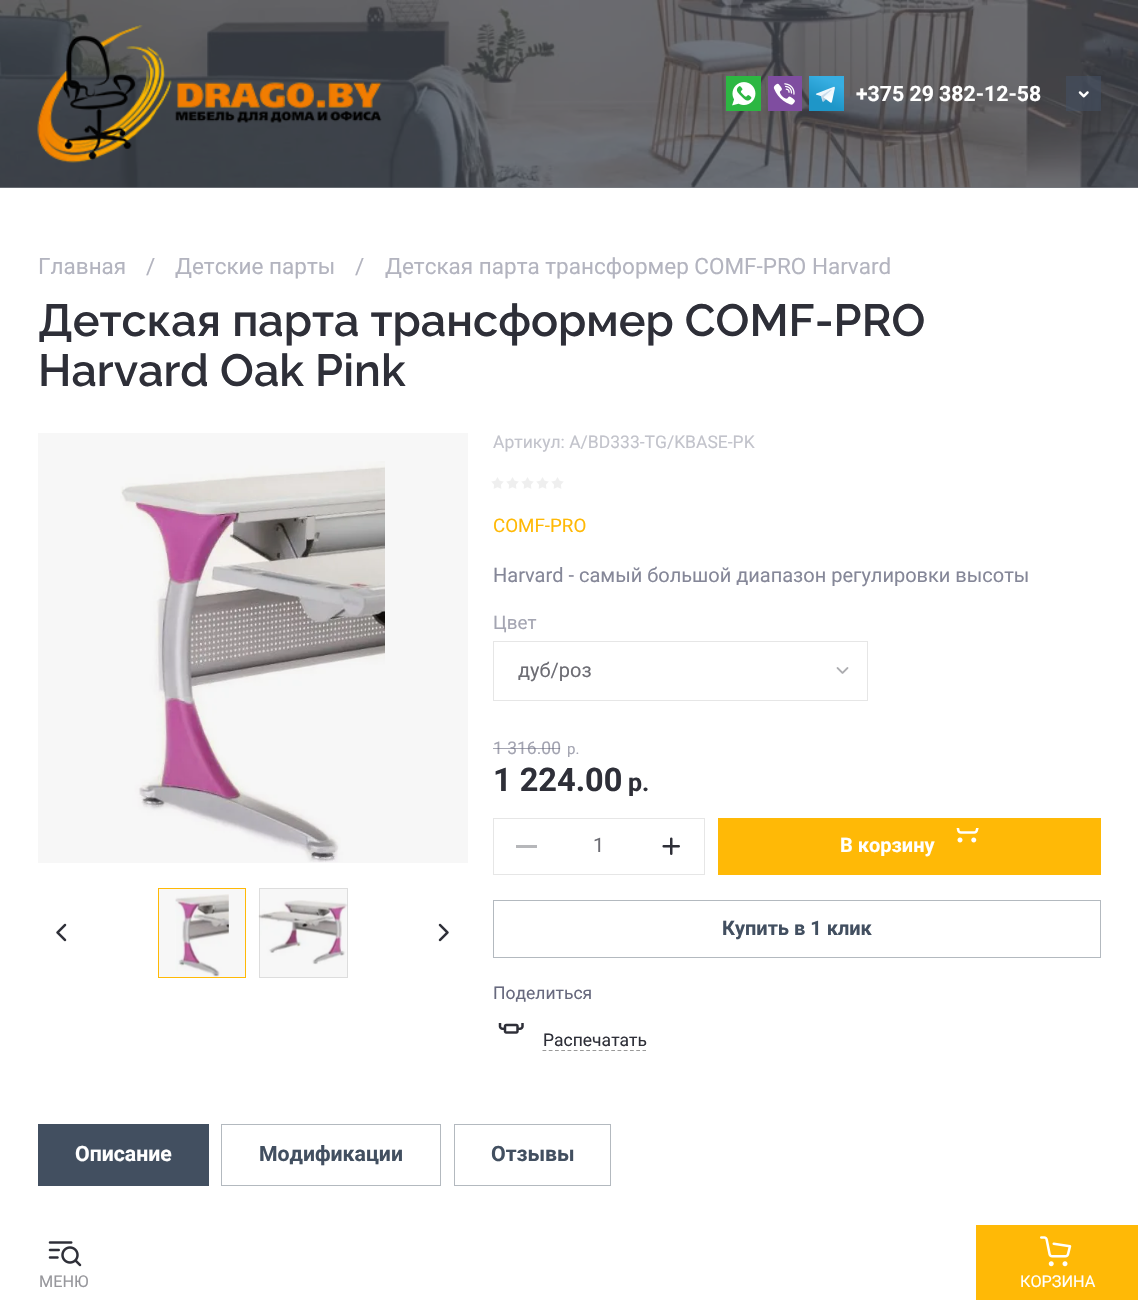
void draw(SkCanvas* canvas) {
	SkPaint fill;
	fill.setAntiAlias(true);
	auto makeFont = [&](const char* family, int weight, float size, bool italic = false) {
		SkFontStyle style(weight, SkFontStyle::kNormal_Width,
			italic ? SkFontStyle::kItalic_Slant : SkFontStyle::kUpright_Slant);
		SkFont result(fontMgr->matchFamilyStyle(family, style), size);
		result.setSubpixel(true);
		return result;
	};
	auto text = [&](const char* s, float x, float y, const SkFont& font) {
		canvas->drawString(s, x, y, font, fill);
	};
	auto box = [&](float l, float t, float r, float b) {
		canvas->drawRect(SkRect::MakeLTRB(l, t, r, b), fill);
	};
	auto picture = [&](const char* path, float l, float t, float r, float b) {
		auto image = SkImages::DeferredFromEncodedData(SkData::MakeFromFileName(path));
		canvas->drawImageRect(image, SkRect::MakeLTRB(l, t, r, b), SkSamplingOptions());
	};
	canvas->clear(0xFFFFFFFF);
	fill.setColor(0xFF74787F);
	box(0, 187, 1138, 188);
	fill.setColor(0xFFF7F7F7);
	box(259, 888, 348, 978);
	box(159, 889, 245, 977);
	box(38, 433, 468, 863);
	picture("image0.png", 0, 0, 1138, 188);
	picture("image1.png", 37, 25, 382, 163);
	picture("image2.png", 726, 76, 761, 111);
	picture("image3.png", 768, 76, 802, 111);
	picture("image4.png", 809, 76, 844, 111);
	fill.setColor(0x99424F60);
	box(1066, 76, 1101, 111);
	picture("image5.png", 1078, 91, 1089, 98);
	picture("image6.png", 120, 461, 385, 863);
	picture("image7.png", 56, 923, 67, 942);
	picture("image8.png", 438, 923, 449, 942);
	picture("image9.png", 175, 894, 229, 977);
	fill.setStyle(SkPaint::kStroke_Style);
	fill.setStrokeWidth(1);
	fill.setColor(0xFFFFB906);
	canvas->drawRect(SkRect::MakeLTRB(158.5f, 888.5f, 245.5f, 977.5f), fill);
	picture("image10.png", 258, 900, 348, 965);
	fill.setColor(0x1A000000);
	canvas->drawRect(SkRect::MakeLTRB(259.5f, 888.5f, 347.5f, 977.5f), fill);
	picture("image11.png", 491, 477, 564, 489);
	fill.setColor(0xFFE6E6E6);
	canvas->drawRect(SkRect::MakeLTRB(493.5f, 641.5f, 867.5f, 700.5f), fill);
	picture("image12.png", 836, 667, 849, 674);
	canvas->drawRect(SkRect::MakeLTRB(493.5f, 818.5f, 704.5f, 874.5f), fill);
	fill.setStyle(SkPaint::kFill_Style);
	fill.setColor(0xFFB6B7BA);
	box(516, 845, 537, 848);
	picture("image13.png", 662, 837, 680, 855);
	fill.setColor(0xFFFFB906);
	box(718, 818, 1101, 875);
	picture("image14.png", 956, 828, 979, 843);
	fill.setStyle(SkPaint::kStroke_Style);
	fill.setColor(0xFFB3B9BF);
	canvas->drawRect(SkRect::MakeLTRB(493.5f, 900.5f, 1100.5f, 957.5f), fill);
	picture("image15.png", 498, 1023, 524, 1034);
	fill.setStrokeWidth(1.2f);
	fill.setColor(0xFF999999);
	fill.setPathEffect(SkDashPathEffect::Make({{3.75f, 2.5f}}, 0));
	canvas->drawPath(SkPathBuilder().moveTo(542.5f, 1050.5f).lineTo(646, 1050.5f).detach(), fill);
	fill.setPathEffect(nullptr);
	fill.setStyle(SkPaint::kFill_Style);
	fill.setColor(0xFF424F60);
	box(38, 1124, 209, 1186);
	fill.setStyle(SkPaint::kStroke_Style);
	fill.setStrokeWidth(1);
	fill.setColor(0xFFB3B9BF);
	canvas->drawRect(SkRect::MakeLTRB(221.5f, 1124.5f, 440.5f, 1185.5f), fill);
	canvas->drawRect(SkRect::MakeLTRB(454.5f, 1124.5f, 610.5f, 1185.5f), fill);
	picture("image16.png", 48, 1241, 82, 1267);
	fill.setStyle(SkPaint::kFill_Style);
	fill.setColor(0xFFFFB906);
	box(976, 1225, 1138, 1300);
	picture("image17.png", 1040, 1236, 1072, 1267);
	auto font1 = makeFont("Roboto", 700, 21.25f);
	fill.setColor(0xFFFFFFFF);
	text("+375 29 382-12-58", 856, 101, font1);
	auto font2 = makeFont("Roboto", 400, 22.5f);
	fill.setColor(0xFFB3B4BF);
	text("Главная", 38, 274, font2);
	text("/", 146, 274, font2);
	text("Детские парты", 175, 274, font2);
	text("/", 355, 274, font2);
	text("Детская парта трансформер COMF-PRO Harvard", 385, 274, font2);
	auto font3 = makeFont("Raleway", 600, 45);
	fill.setColor(0xFF2E2F38);
	text("Детская парта трансформер COMF-PRO", 38, 336, font3);
	text("Harvard Oak Pink", 38, 386, font3);
	auto font4 = makeFont("Roboto", 400, 17.5f);
	fill.setColor(0xFFC2C3CB);
	text("Артикул: A/BD333-TG/KBASE-PK", 493, 448, font4);
	auto font5 = makeFont("Roboto", 400, 18.75f);
	fill.setColor(0xFFFFB906);
	text("COMF-PRO", 493, 532, font5);
	auto font6 = makeFont("Roboto", 400, 20);
	fill.setColor(0xFF858798);
	text("Harvard - самый большой диапазон регулировки высоты", 493, 582, font6);
	fill.setColor(0xFFA4A5B2);
	text("Цвет", 493, 629, font5);
	fill.setColor(0xFF6D6D74);
	text("дуб/роз", 518, 677, font6);
	fill.setColor(0xFFA4A5B2);
	text("1 316.00", 493, 754, font4);
	fill.setColor(0x9967697E);
	box(493, 748, 560, 749);
	auto font7 = makeFont("Roboto", 400, 15);
	fill.setColor(0xFFA4A5B2);
	text("р.", 567, 754, font7);
	auto font8 = makeFont("Roboto", 700, 32.5f);
	fill.setColor(0xFF2E2F38);
	text("1 224.00", 493, 791, font8);
	auto font9 = makeFont("Roboto", 700, 25);
	text("р.", 628, 791, font9);
	fill.setColor(0xFF6D6D74);
	text("1", 593, 852, font6);
	auto font10 = makeFont("Roboto", 700, 20);
	fill.setColor(0xFFFFFFFF);
	text("В корзину", 840, 852, font10);
	fill.setColor(0xFF424F60);
	text("Купить в 1 клик", 722, 935, font10);
	fill.setColor(0xFF67697E);
	text("Поделиться", 493, 999, font4);
	fill.setColor(0xFF2E2F38);
	text("Распечатать", 543, 1046, font4);
	fill.setColor(0xFFFFFFFF);
	text("Описание", 75, 1161, font1);
	fill.setColor(0xFF424F60);
	text("Модификации", 259, 1161, font1);
	text("Отзывы", 491, 1161, font1);
	auto font11 = makeFont("Roboto", 400, 16.25f);
	fill.setColor(0xFF97979C);
	text("МЕНЮ", 39, 1287, font11);
	fill.setColor(0xFFFFFFFF);
	text("КОРЗИНА", 1020, 1287, font11);
}
